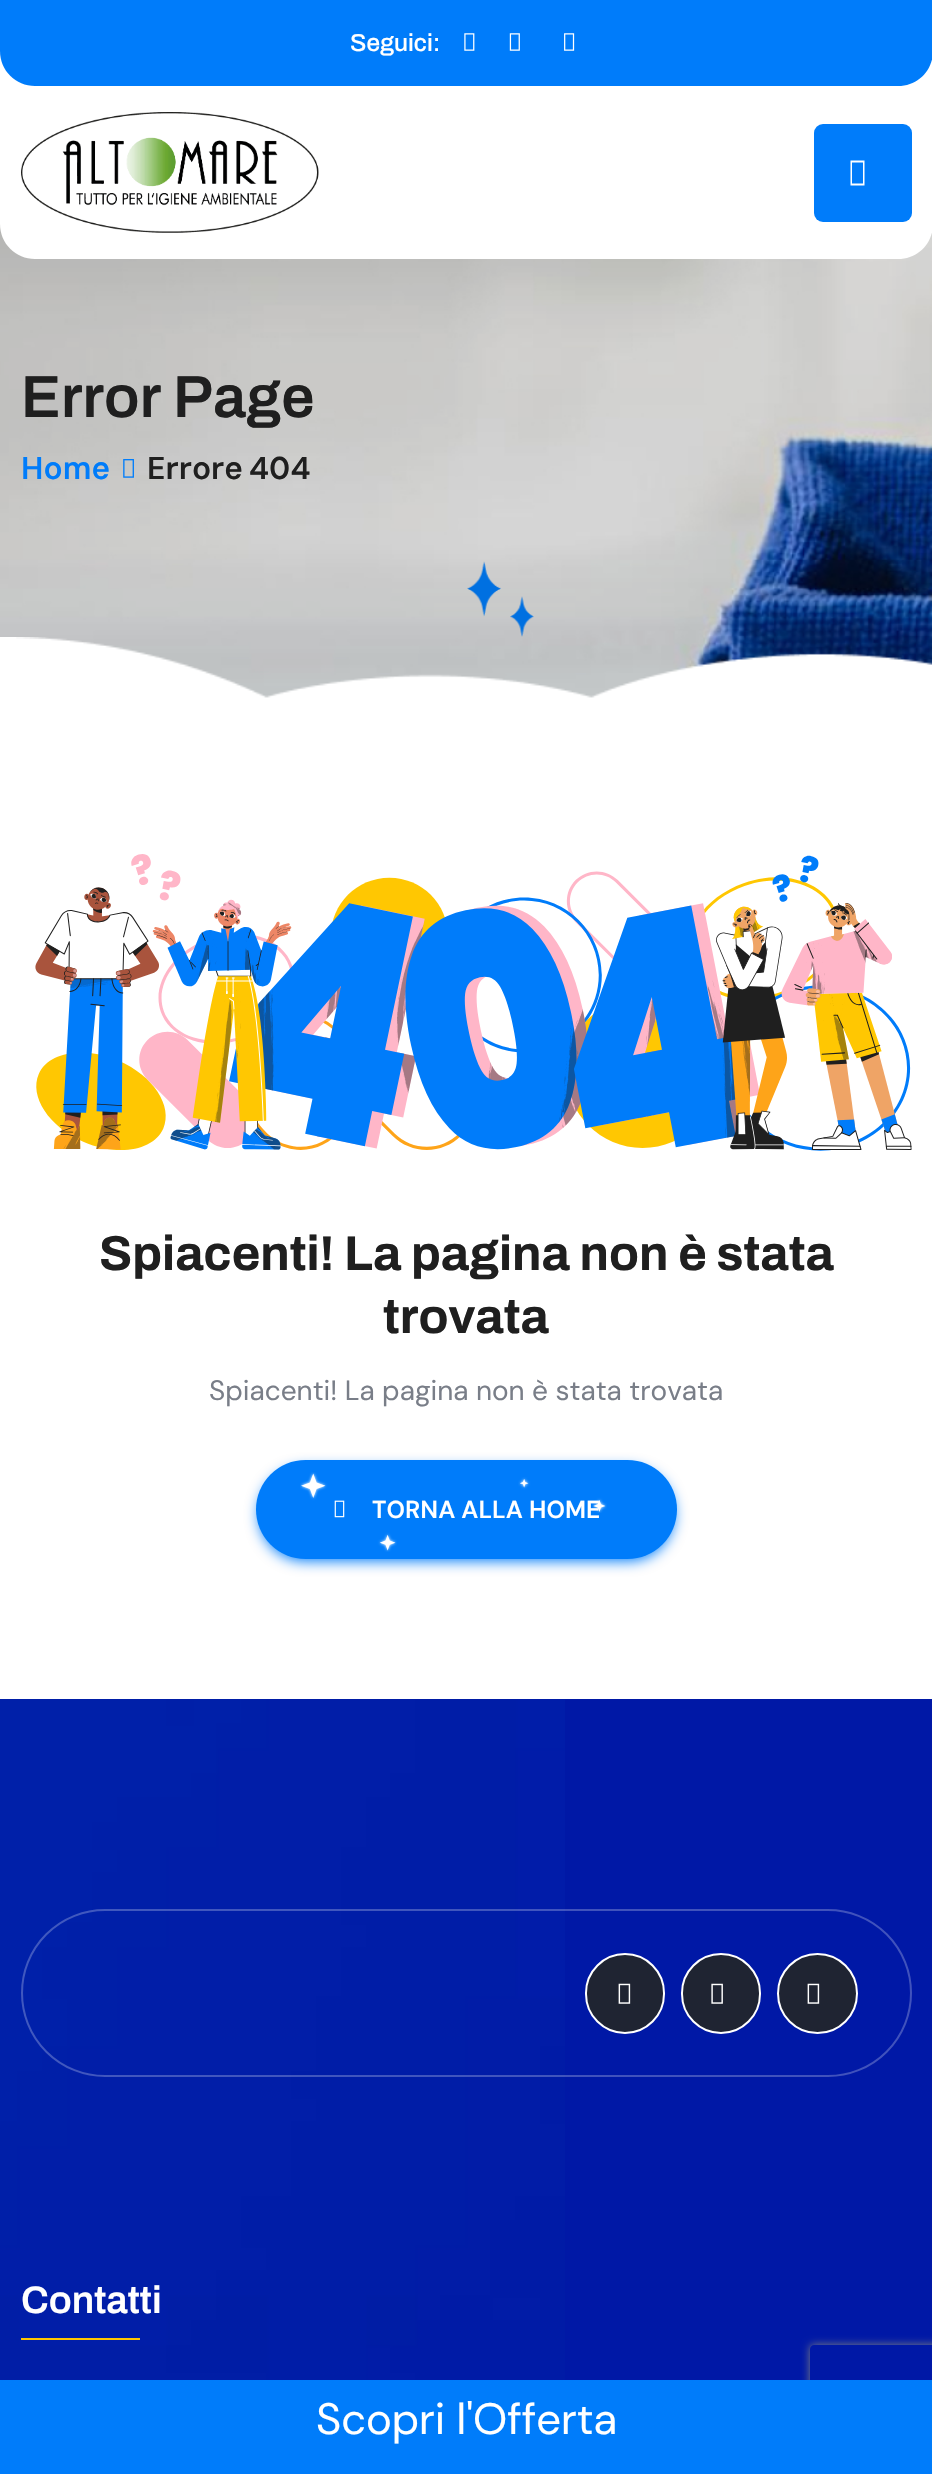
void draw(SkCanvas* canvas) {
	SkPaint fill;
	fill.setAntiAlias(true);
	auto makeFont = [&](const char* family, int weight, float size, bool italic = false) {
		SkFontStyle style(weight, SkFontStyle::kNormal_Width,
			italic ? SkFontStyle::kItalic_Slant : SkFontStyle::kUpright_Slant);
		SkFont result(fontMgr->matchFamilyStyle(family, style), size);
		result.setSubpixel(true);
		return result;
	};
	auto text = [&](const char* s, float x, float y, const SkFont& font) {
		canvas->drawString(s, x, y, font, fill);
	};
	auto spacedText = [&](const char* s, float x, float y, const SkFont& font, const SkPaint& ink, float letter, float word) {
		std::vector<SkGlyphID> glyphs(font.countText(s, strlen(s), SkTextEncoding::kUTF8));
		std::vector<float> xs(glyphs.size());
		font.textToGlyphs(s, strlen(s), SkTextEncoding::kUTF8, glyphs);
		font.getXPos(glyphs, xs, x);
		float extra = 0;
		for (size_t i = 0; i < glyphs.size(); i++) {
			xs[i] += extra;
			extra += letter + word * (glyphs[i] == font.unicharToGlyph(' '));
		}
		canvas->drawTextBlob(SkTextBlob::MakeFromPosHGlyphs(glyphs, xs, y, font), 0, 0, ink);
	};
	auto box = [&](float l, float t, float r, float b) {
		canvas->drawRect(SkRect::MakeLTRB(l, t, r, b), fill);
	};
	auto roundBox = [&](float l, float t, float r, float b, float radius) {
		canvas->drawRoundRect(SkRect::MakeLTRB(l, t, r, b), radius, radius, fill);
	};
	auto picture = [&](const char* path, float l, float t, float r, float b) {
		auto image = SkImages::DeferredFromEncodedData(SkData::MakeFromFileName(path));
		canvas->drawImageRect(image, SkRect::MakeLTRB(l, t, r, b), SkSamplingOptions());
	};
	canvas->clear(0xFFFFFFFF);
	picture("image4.png", 0, 224, 932, 698);
	fill.setColor(0xFFFFFFFF);
	canvas->drawPath(SkPathBuilder().moveTo(0, 0).lineTo(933, 0).lineTo(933, 224).cubicTo(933, 243.5f, 917.5f, 259, 898, 259).lineTo(35, 259).cubicTo(15.5f, 259, 0, 243.5f, 0, 224).close().detach(), fill);
	fill.setColor(0xFF007CFA);
	canvas->drawPath(SkPathBuilder().moveTo(0, 0).lineTo(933, 0).lineTo(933, 51).cubicTo(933, 70.5f, 917.5f, 86, 898, 86).lineTo(35, 86).cubicTo(15.5f, 86, 0, 70.5f, 0, 51).close().detach(), fill);
	picture("image0.png", 464, 33, 475, 51);
	picture("image1.png", 509, 33, 520, 51);
	picture("image2.png", 564, 33, 575, 51);
	picture("image3.png", 21, 112, 319, 233);
	roundBox(814, 124, 912, 222, 9);
	fill.setColor(0xFFFFFFFF);
	canvas->drawPath(SkPathBuilder().moveTo(850.5f, 185.5f).lineTo(850.5f, 160.5f).lineTo(864.5f, 160.5f).lineTo(864.5f, 185.5f).close().moveTo(852, 183.5f).lineTo(863, 183.5f).lineTo(863, 162.5f).lineTo(852, 162.5f).close().detach(), fill);
	picture("image5.png", 123, 459, 134, 478);
	picture("image6.png", 467, 561, 534, 637);
	picture("image7.png", 0, 637, 932, 749);
	picture("image8.png", 35, 854, 912, 1151);
	fill.setColor(0xFF007CFA);
	fill.setMaskFilter(SkMaskFilter::MakeBlur(kNormal_SkBlurStyle, 7));
	canvas->drawRoundRect(SkRect::MakeLTRB(259, 1468, 674, 1561), 46.5f, 46.5f, fill);
	fill.setMaskFilter(nullptr);
	roundBox(256, 1460, 677, 1559, 49.5f);
	picture("image11.png", 334, 1500, 345, 1518);
	fill.setColor(0xFF0018A6);
	box(0, 1699, 932, 2380);
	picture("image12.png", 0, 1699, 565, 2380);
	fill.setStyle(SkPaint::kStroke_Style);
	fill.setStrokeWidth(2);
	fill.setColor(0x40FFFFFF);
	canvas->drawRoundRect(SkRect::MakeLTRB(22, 1910, 911, 2076), 83, 83, fill);
	fill.setStyle(SkPaint::kFill_Style);
	fill.setColor(0xFF1F2432);
	canvas->drawRoundRect(SkRect::MakeLTRB(586, 1954, 664, 2033), 39, 39, fill);
	fill.setStyle(SkPaint::kStroke_Style);
	fill.setColor(0xFFFFFFFF);
	canvas->drawRoundRect(SkRect::MakeLTRB(586, 1954, 664, 2033), 39, 39, fill);
	picture("image13.png", 618, 1983, 631, 2004);
	fill.setStyle(SkPaint::kFill_Style);
	fill.setColor(0xFF1F2432);
	canvas->drawRoundRect(SkRect::MakeLTRB(682, 1954, 760, 2033), 39, 39, fill);
	fill.setStyle(SkPaint::kStroke_Style);
	fill.setColor(0xFFFFFFFF);
	canvas->drawRoundRect(SkRect::MakeLTRB(682, 1954, 760, 2033), 39, 39, fill);
	picture("image14.png", 711, 1983, 723, 2004);
	fill.setStyle(SkPaint::kFill_Style);
	fill.setColor(0xFF1F2432);
	canvas->drawCircle(817.5f, 1993.5f, 39.5f, fill);
	fill.setStyle(SkPaint::kStroke_Style);
	fill.setColor(0xFFFFFFFF);
	canvas->drawCircle(817.5f, 1993.5f, 39.5f, fill);
	picture("image13.png", 807, 1983, 820, 2004);
	fill.setStyle(SkPaint::kFill_Style);
	fill.setColor(0xFFFFC702);
	box(21, 2338, 140, 2340);
	canvas->save();
	canvas->clipPath(SkPathBuilder(SkPathFillType::kEvenOdd).moveTo(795, 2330).lineTo(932, 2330).lineTo(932, 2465).lineTo(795, 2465).close().moveTo(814, 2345).lineTo(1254, 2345).cubicTo(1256, 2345, 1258, 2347, 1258, 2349).lineTo(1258, 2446).cubicTo(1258, 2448, 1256, 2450, 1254, 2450).lineTo(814, 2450).cubicTo(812, 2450, 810, 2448, 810, 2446).lineTo(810, 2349).cubicTo(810, 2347, 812, 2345, 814, 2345).close().detach(), true);
	fill.setColor(0xFF808080);
	fill.setMaskFilter(SkMaskFilter::MakeBlur(kNormal_SkBlurStyle, 4.5f));
	canvas->drawRoundRect(SkRect::MakeLTRB(810, 2345, 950, 2450), 4, 4, fill);
	fill.setMaskFilter(nullptr);
	canvas->restore();
	fill.setColor(0xFF007CFA);
	box(0, 2380, 932, 2474);
	auto font1 = makeFont("Archivo", 500, 24.5f);
	fill.setColor(0xFFFFFFFF);
	text("Seguici:", 350, 51, font1);
	auto font2 = makeFont("Archivo", 600, 59.5f);
	fill.setColor(0xFF1F1F1F);
	text("Error Page", 21, 417, font2);
	auto font3 = makeFont("DM Sans", 600, 31.5f);
	fill.setColor(0xFF007CFA);
	text("Home", 21, 479, font3);
	fill.setColor(0xFF1F1F1F);
	spacedText("Errore 404", 147, 479, font3, fill, 0, -2);
	auto font4 = makeFont("Archivo", 700, 49);
	text("Spiacenti! La pagina non è stata", 99, 1270, font4);
	text("trovata", 383, 1333, font4);
	auto font5 = makeFont("DM Sans", 400, 28);
	fill.setColor(0xFF797E88);
	text("Spiacenti! La pagina non è stata trovata", 209, 1400, font5);
	auto font6 = makeFont("DM Sans", 600, 24.5f);
	fill.setColor(0xFFFFFFFF);
	text("TORNA ALLA HOME", 372, 1518, font6);
	picture("image10.png", 518, 1477, 607, 1513);
	picture("image9.png", 300, 1472, 397, 1552);
	auto font7 = makeFont("Archivo", 600, 38.5f);
	text("Contatti", 21, 2313, font7);
	auto font8 = makeFont("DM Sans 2", 400, 43.75f);
	text("Scopri l'Offerta", 316, 2434, font8);
}
